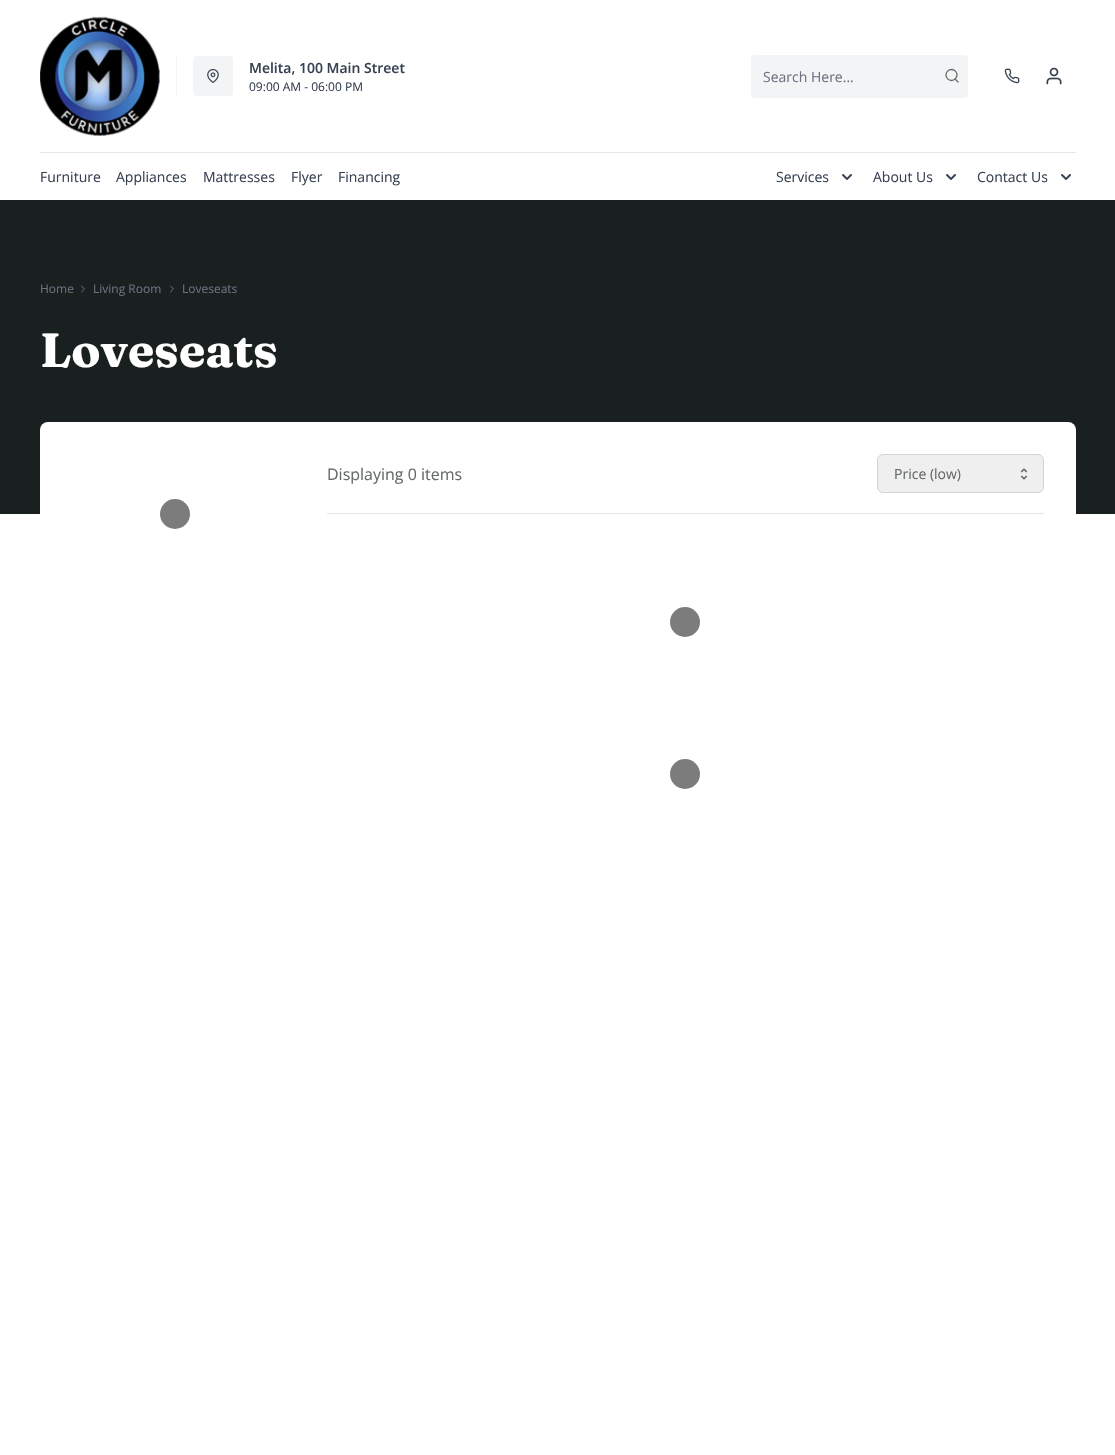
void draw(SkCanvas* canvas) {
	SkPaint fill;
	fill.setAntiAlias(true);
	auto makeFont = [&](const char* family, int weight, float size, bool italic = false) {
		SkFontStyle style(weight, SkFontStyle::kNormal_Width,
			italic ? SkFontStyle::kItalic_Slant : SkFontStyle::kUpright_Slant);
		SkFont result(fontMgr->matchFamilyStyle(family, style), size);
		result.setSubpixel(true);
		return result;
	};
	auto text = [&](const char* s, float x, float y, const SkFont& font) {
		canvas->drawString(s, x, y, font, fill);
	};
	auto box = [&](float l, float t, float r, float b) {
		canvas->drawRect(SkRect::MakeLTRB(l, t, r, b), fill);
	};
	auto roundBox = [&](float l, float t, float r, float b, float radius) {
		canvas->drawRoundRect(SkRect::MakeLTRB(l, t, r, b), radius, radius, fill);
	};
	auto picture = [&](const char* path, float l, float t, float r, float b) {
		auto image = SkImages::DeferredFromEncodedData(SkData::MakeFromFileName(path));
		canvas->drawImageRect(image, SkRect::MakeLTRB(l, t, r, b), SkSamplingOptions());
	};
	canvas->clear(0xFFFFFFFF);
	picture("image0.png", 40, 16, 160, 136);
	fill.setColor(0xFFF3F4F6);
	box(176, 56, 177, 96);
	roundBox(193, 56, 233, 96, 4);
	picture("image1.png", 207, 69, 219, 83);
	roundBox(751, 55, 968, 98, 4);
	fill.setStyle(SkPaint::kStroke_Style);
	fill.setStrokeWidth(1.3f);
	fill.setColor(0xFF656A67);
	canvas->drawCircle(951.5f, 75, 5.5f, fill);
	fill.setStrokeCap(SkPaint::kRound_Cap);
	fill.setStrokeJoin(SkPaint::kRound_Join);
	canvas->drawPath(SkPathBuilder().moveTo(958, 82).lineTo(955, 79).detach(), fill);
	picture("image2.png", 1004, 68, 1020, 84);
	picture("image3.png", 1046, 67, 1062, 85);
	fill.setStyle(SkPaint::kFill_Style);
	fill.setColor(0xFFE5E7EB);
	box(40, 152, 1076, 153);
	picture("image4.png", 842, 174, 852, 180);
	picture("image4.png", 946, 174, 956, 180);
	picture("image4.png", 1061, 174, 1071, 180);
	fill.setColor(0xFF1A1F1F);
	box(0, 200, 1115, 514);
	fill.setStyle(SkPaint::kStroke_Style);
	fill.setStrokeWidth(1);
	fill.setColor(0xFF6B7280);
	canvas->drawPath(SkPathBuilder().moveTo(81.5f, 292).lineTo(84.5f, 289).lineTo(81.5f, 286).detach(), fill);
	canvas->drawPath(SkPathBuilder().moveTo(170.5f, 292).lineTo(173.5f, 289).lineTo(170.5f, 286).detach(), fill);
	fill.setStyle(SkPaint::kFill_Style);
	fill.setColor(0xFFFFFFFF);
	roundBox(40, 422, 1076, 638, 8);
	fill.setColor(0xFFE5E7EB);
	box(327, 513, 1044, 514);
	fill.setColor(0xFFEFEFEF);
	canvas->drawRoundRect(SkRect::MakeLTRB(877.5f, 454.5f, 1043.5f, 492.5f), 5.5f, 5.5f, fill);
	fill.setStyle(SkPaint::kStroke_Style);
	fill.setStrokeCap(SkPaint::kButt_Cap);
	fill.setStrokeJoin(SkPaint::kMiter_Join);
	fill.setColor(0xFFD1D5DB);
	canvas->drawRoundRect(SkRect::MakeLTRB(877.5f, 454.5f, 1043.5f, 492.5f), 5.5f, 5.5f, fill);
	picture("image5.png", 1020, 468, 1028, 480);
	fill.setStyle(SkPaint::kFill_Style);
	fill.setColor(0xFF7C7C7C);
	canvas->drawCircle(685, 622, 15, fill);
	canvas->drawCircle(685, 774, 15, fill);
	canvas->drawCircle(175, 514, 15, fill);
	auto font1 = makeFont("Open Sans", 600, 14);
	fill.setColor(0xFF374151);
	text("Melita, 100 Main Street", 249, 73, font1);
	auto font2 = makeFont("Open Sans", 400, 12);
	text("09:00 AM - 06:00 PM", 249, 91, font2);
	auto font3 = makeFont("Open Sans", 400, 14);
	fill.setColor(0xFF6B7280);
	text("Search Here...", 763, 82, font3);
	fill.setColor(0xFF374151);
	text("Furniture", 40, 182, font3);
	text("Appliances", 116, 182, font3);
	text("Mattresses", 203, 182, font3);
	text("Flyer", 291, 182, font3);
	text("Financing", 338, 182, font3);
	text("Services", 776, 182, font3);
	text("About Us", 873, 182, font3);
	text("Contact Us", 977, 182, font3);
	fill.setColor(0xFF6B7280);
	text("Home", 40, 293, font2);
	text("Living Room", 93, 293, font2);
	text("Loveseats", 182, 293, font2);
	auto font4 = makeFont("Fraunces", 700, 48);
	fill.setColor(0xFFFFFFFF);
	text("Loveseats", 40, 367, font4);
	auto font5 = makeFont("Open Sans", 400, 16);
	fill.setColor(0xFF656A67);
	text("Displaying 0 items", 327, 480, font5);
	text("Price (low)", 894, 479, font3);
}
